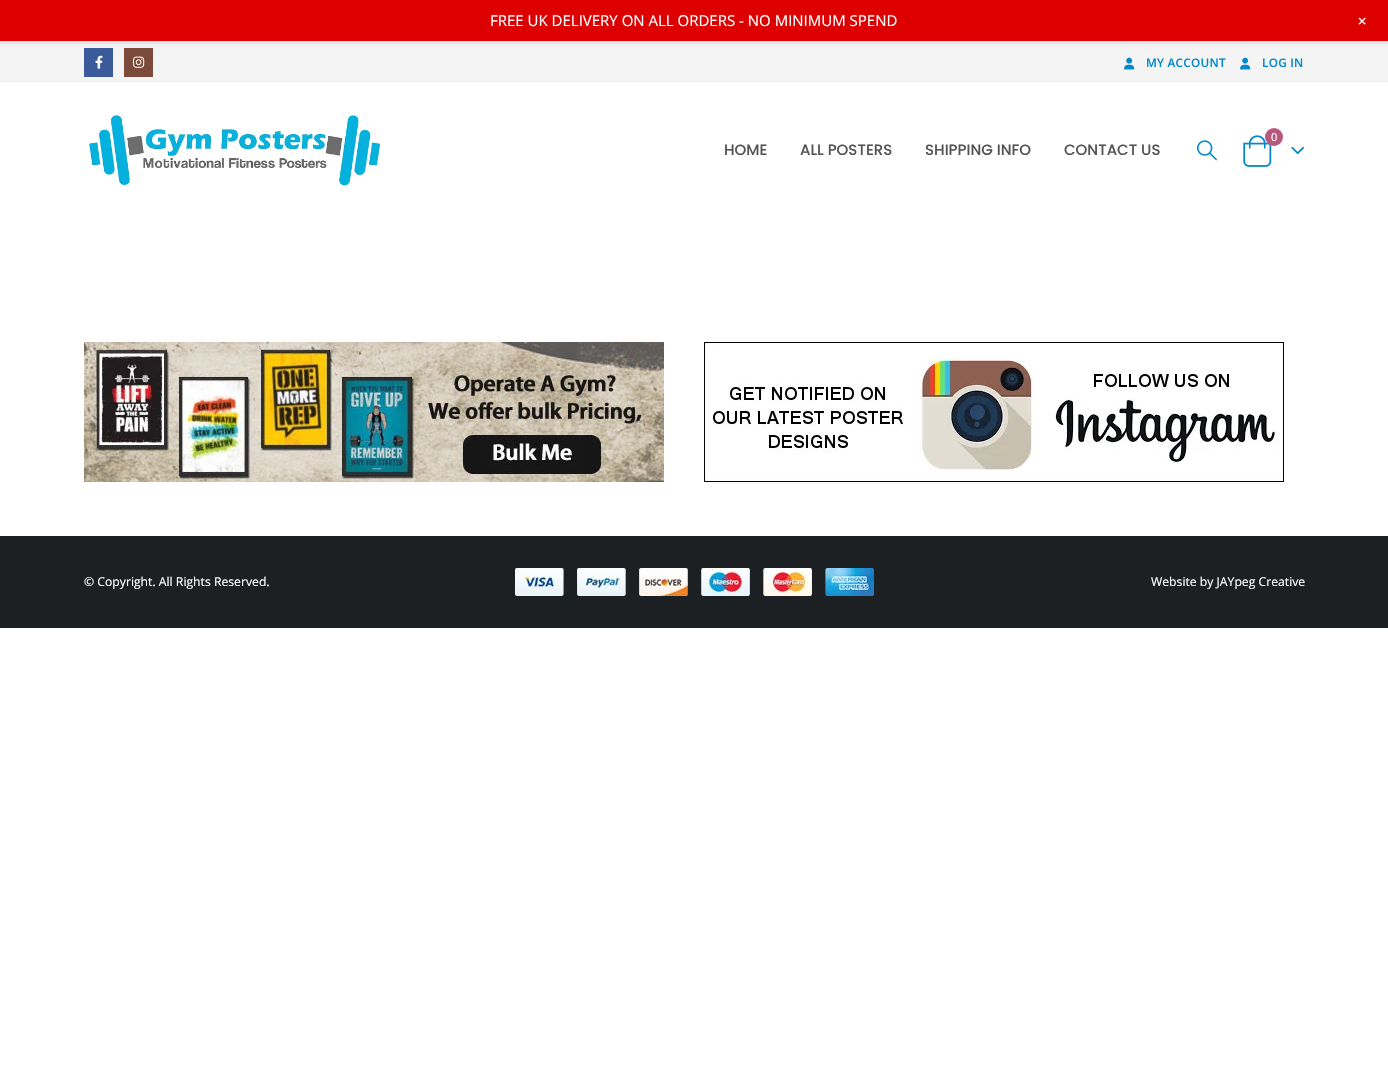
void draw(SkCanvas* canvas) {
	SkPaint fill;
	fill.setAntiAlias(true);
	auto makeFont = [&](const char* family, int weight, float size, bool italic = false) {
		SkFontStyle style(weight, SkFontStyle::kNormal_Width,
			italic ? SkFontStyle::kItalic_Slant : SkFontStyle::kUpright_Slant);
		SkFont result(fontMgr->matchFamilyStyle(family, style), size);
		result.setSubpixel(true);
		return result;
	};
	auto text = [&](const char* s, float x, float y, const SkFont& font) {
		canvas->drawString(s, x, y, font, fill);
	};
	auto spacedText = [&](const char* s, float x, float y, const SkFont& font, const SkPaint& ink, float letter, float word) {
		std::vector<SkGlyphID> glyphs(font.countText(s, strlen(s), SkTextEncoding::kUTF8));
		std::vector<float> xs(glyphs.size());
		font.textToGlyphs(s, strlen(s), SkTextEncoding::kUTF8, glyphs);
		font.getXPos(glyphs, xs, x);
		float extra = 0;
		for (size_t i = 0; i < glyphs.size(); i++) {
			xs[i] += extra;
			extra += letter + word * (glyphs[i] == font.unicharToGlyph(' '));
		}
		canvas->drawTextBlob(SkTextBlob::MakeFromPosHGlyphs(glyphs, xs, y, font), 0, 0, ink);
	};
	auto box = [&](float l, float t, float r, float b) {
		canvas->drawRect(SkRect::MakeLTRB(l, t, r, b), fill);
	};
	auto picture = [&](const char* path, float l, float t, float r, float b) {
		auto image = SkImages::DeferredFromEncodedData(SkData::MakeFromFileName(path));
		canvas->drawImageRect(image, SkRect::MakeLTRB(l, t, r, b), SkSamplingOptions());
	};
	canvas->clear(0xFFFFFFFF);
	fill.setColor(0xFFEDEDED);
	box(0, 41, 1388, 44);
	fill.setColor(0xFFF4F4F4);
	box(0, 44, 1388, 81);
	fill.setColor(0xFF3B5A9A);
	box(84, 48, 113, 77);
	fill.setColor(0xFF7C4A3A);
	box(124, 48, 153, 77);
	fill.setColor(0x0D000000);
	fill.setMaskFilter(SkMaskFilter::MakeBlur(kNormal_SkBlurStyle, 2));
	canvas->drawRect(SkRect::MakeLTRB(0, 3, 1388, 44), fill);
	fill.setMaskFilter(nullptr);
	fill.setColor(0xFFDD0000);
	box(0, 0, 1388, 41);
	fill.setColor(0xFFEDEDED);
	box(0, 81, 1388, 82);
	picture("image0.png", 95, 55, 103, 69);
	picture("image1.png", 133, 56, 145, 68);
	picture("image2.png", 1124, 57, 1135, 70);
	picture("image2.png", 1240, 57, 1251, 70);
	picture("image3.png", 89, 115, 381, 186);
	picture("image4.png", 1243, 135, 1272, 167);
	fill.setColor(0xFFB7597C);
	canvas->drawCircle(1274, 137, 9, fill);
	picture("image5.png", 1291, 146, 1305, 155);
	picture("image6.png", 1197, 140, 1217, 161);
	picture("image7.png", 84, 342, 664, 482);
	picture("image8.png", 704, 342, 1284, 482);
	fill.setColor(0xFF1C2023);
	box(0, 536, 1388, 628);
	picture("image9.png", 515, 568, 874, 596);
	auto font1 = makeFont("Open Sans", 400, 15);
	fill.setColor(0xFFFFFFFF);
	text("FREE UK DELIVERY ON ALL ORDERS - NO MINIMUM SPEND", 490, 26, font1);
	auto font2 = makeFont("Open Sans", 400, 18);
	canvas->save();
	canvas->rotate(45, 1354, 22);
	text("+", 1354, 22, font2);
	canvas->restore();
	auto font3 = makeFont("Open Sans", 600, 11.75f);
	fill.setColor(0xFF0088CC);
	spacedText("MY ACCOUNT", 1146, 67, font3, fill, 0.25f, 0);
	spacedText("LOG IN", 1262, 67, font3, fill, 0.25f, 0);
	auto font4 = makeFont("Open Sans", 400, 11);
	fill.setColor(0xFFFFFFFF);
	text("0", 1271, 141, font4);
	auto font5 = makeFont("Poppins", 500, 15);
	fill.setColor(0xFF545454);
	text("HOME", 724, 155, font5);
	text("ALL POSTERS", 800, 155, font5);
	text("SHIPPING INFO", 925, 155, font5);
	text("CONTACT US", 1064, 155, font5);
	auto font6 = makeFont("Open Sans", 400, 12.2f);
	fill.setColor(0xFFFFFFFF);
	text("© Copyright. All Rights Reserved.", 84, 586, font6);
	text("Website by JAYpeg Creative", 1151, 586, font6);
}
